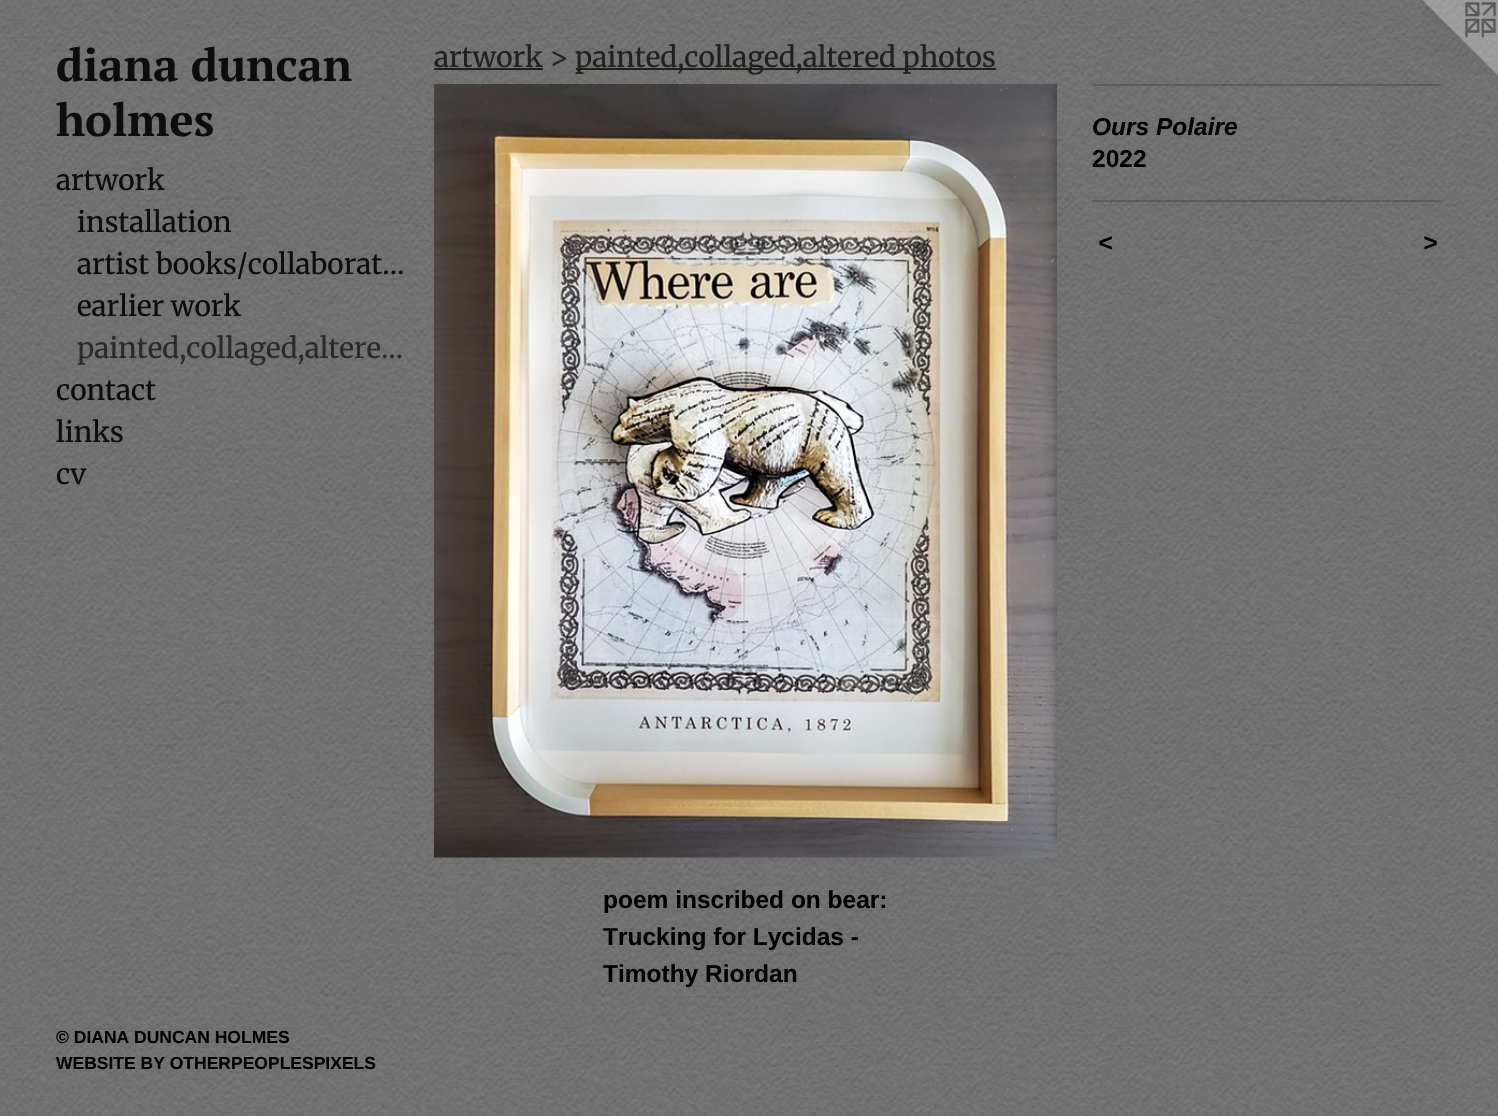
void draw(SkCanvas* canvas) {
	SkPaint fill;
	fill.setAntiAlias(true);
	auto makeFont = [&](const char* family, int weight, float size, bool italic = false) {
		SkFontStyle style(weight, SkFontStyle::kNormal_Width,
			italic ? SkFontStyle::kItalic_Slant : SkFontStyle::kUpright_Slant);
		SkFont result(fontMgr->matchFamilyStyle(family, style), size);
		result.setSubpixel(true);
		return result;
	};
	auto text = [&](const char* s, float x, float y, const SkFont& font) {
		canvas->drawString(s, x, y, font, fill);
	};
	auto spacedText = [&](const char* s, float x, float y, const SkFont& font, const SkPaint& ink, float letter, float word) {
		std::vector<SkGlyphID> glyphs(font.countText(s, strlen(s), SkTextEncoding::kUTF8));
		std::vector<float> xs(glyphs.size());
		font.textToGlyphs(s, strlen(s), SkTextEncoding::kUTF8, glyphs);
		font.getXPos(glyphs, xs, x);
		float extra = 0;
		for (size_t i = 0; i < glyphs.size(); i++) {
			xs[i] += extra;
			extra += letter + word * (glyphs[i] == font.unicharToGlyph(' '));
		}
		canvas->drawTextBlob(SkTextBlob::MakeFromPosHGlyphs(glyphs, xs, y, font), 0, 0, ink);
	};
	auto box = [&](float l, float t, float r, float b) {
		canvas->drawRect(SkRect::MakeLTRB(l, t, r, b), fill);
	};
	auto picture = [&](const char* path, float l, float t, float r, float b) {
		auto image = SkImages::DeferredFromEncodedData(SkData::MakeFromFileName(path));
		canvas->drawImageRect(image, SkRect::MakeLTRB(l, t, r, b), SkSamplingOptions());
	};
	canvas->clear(0xFFFFFFFF);
	picture("image0.png", 0, 0, 1498, 1116);
	fill.setColor(0xFF20201D);
	box(434, 68, 543, 70);
	box(576, 68, 996, 70);
	picture("image1.png", 434, 84, 1057, 858);
	fill.setColor(0x33000000);
	box(1092, 84, 1442, 86);
	box(1092, 200, 1442, 202);
	picture("image2.png", 1423, 0, 1498, 75);
	auto font1 = makeFont("PT Serif", 700, 45.5f);
	fill.setColor(0xFF0D0D0C);
	text("diana duncan", 56, 81, font1);
	text("holmes", 56, 136, font1);
	auto font2 = makeFont("Merriweather", 300, 28);
	text("artwork", 56, 190, font2);
	text("installation", 77, 232, font2);
	text("artist books/collaborat…", 77, 274, font2);
	text("earlier work", 77, 316, font2);
	fill.setColor(0xFF2A2A28);
	text("painted,collaged,altere…", 77, 358, font2);
	fill.setColor(0xFF0D0D0C);
	text("contact", 56, 400, font2);
	text("links", 56, 442, font2);
	text("cv", 56, 484, font2);
	auto font3 = makeFont("Liberation Sans", 700, 17.5f);
	fill.setColor(0xFF000000);
	text("© DIANA DUNCAN HOLMES", 56, 1043, font3);
	text("WEBSITE BY OTHERPEOPLESPIXELS", 56, 1069, font3);
	fill.setColor(0xFF20201D);
	text("artwork >", 434, 67, font2);
	text("painted,collaged,altered photos", 575, 67, font2);
	auto font4 = makeFont("Liberation Sans", 700, 24.5f, true);
	fill.setColor(0xFF000000);
	text("Ours Polaire", 1092, 135, font4);
	auto font5 = makeFont("Liberation Sans", 700, 24.5f);
	text("2022", 1092, 167, font5);
	spacedText("<", 1098, 251, font4, fill, 2, 0);
	spacedText(">", 1423, 251, font4, fill, 2, 0);
	text("poem inscribed on bear:", 603, 908, font5);
	text("Trucking for Lycidas -", 603, 945, font5);
	text("Timothy Riordan", 603, 982, font5);
}
